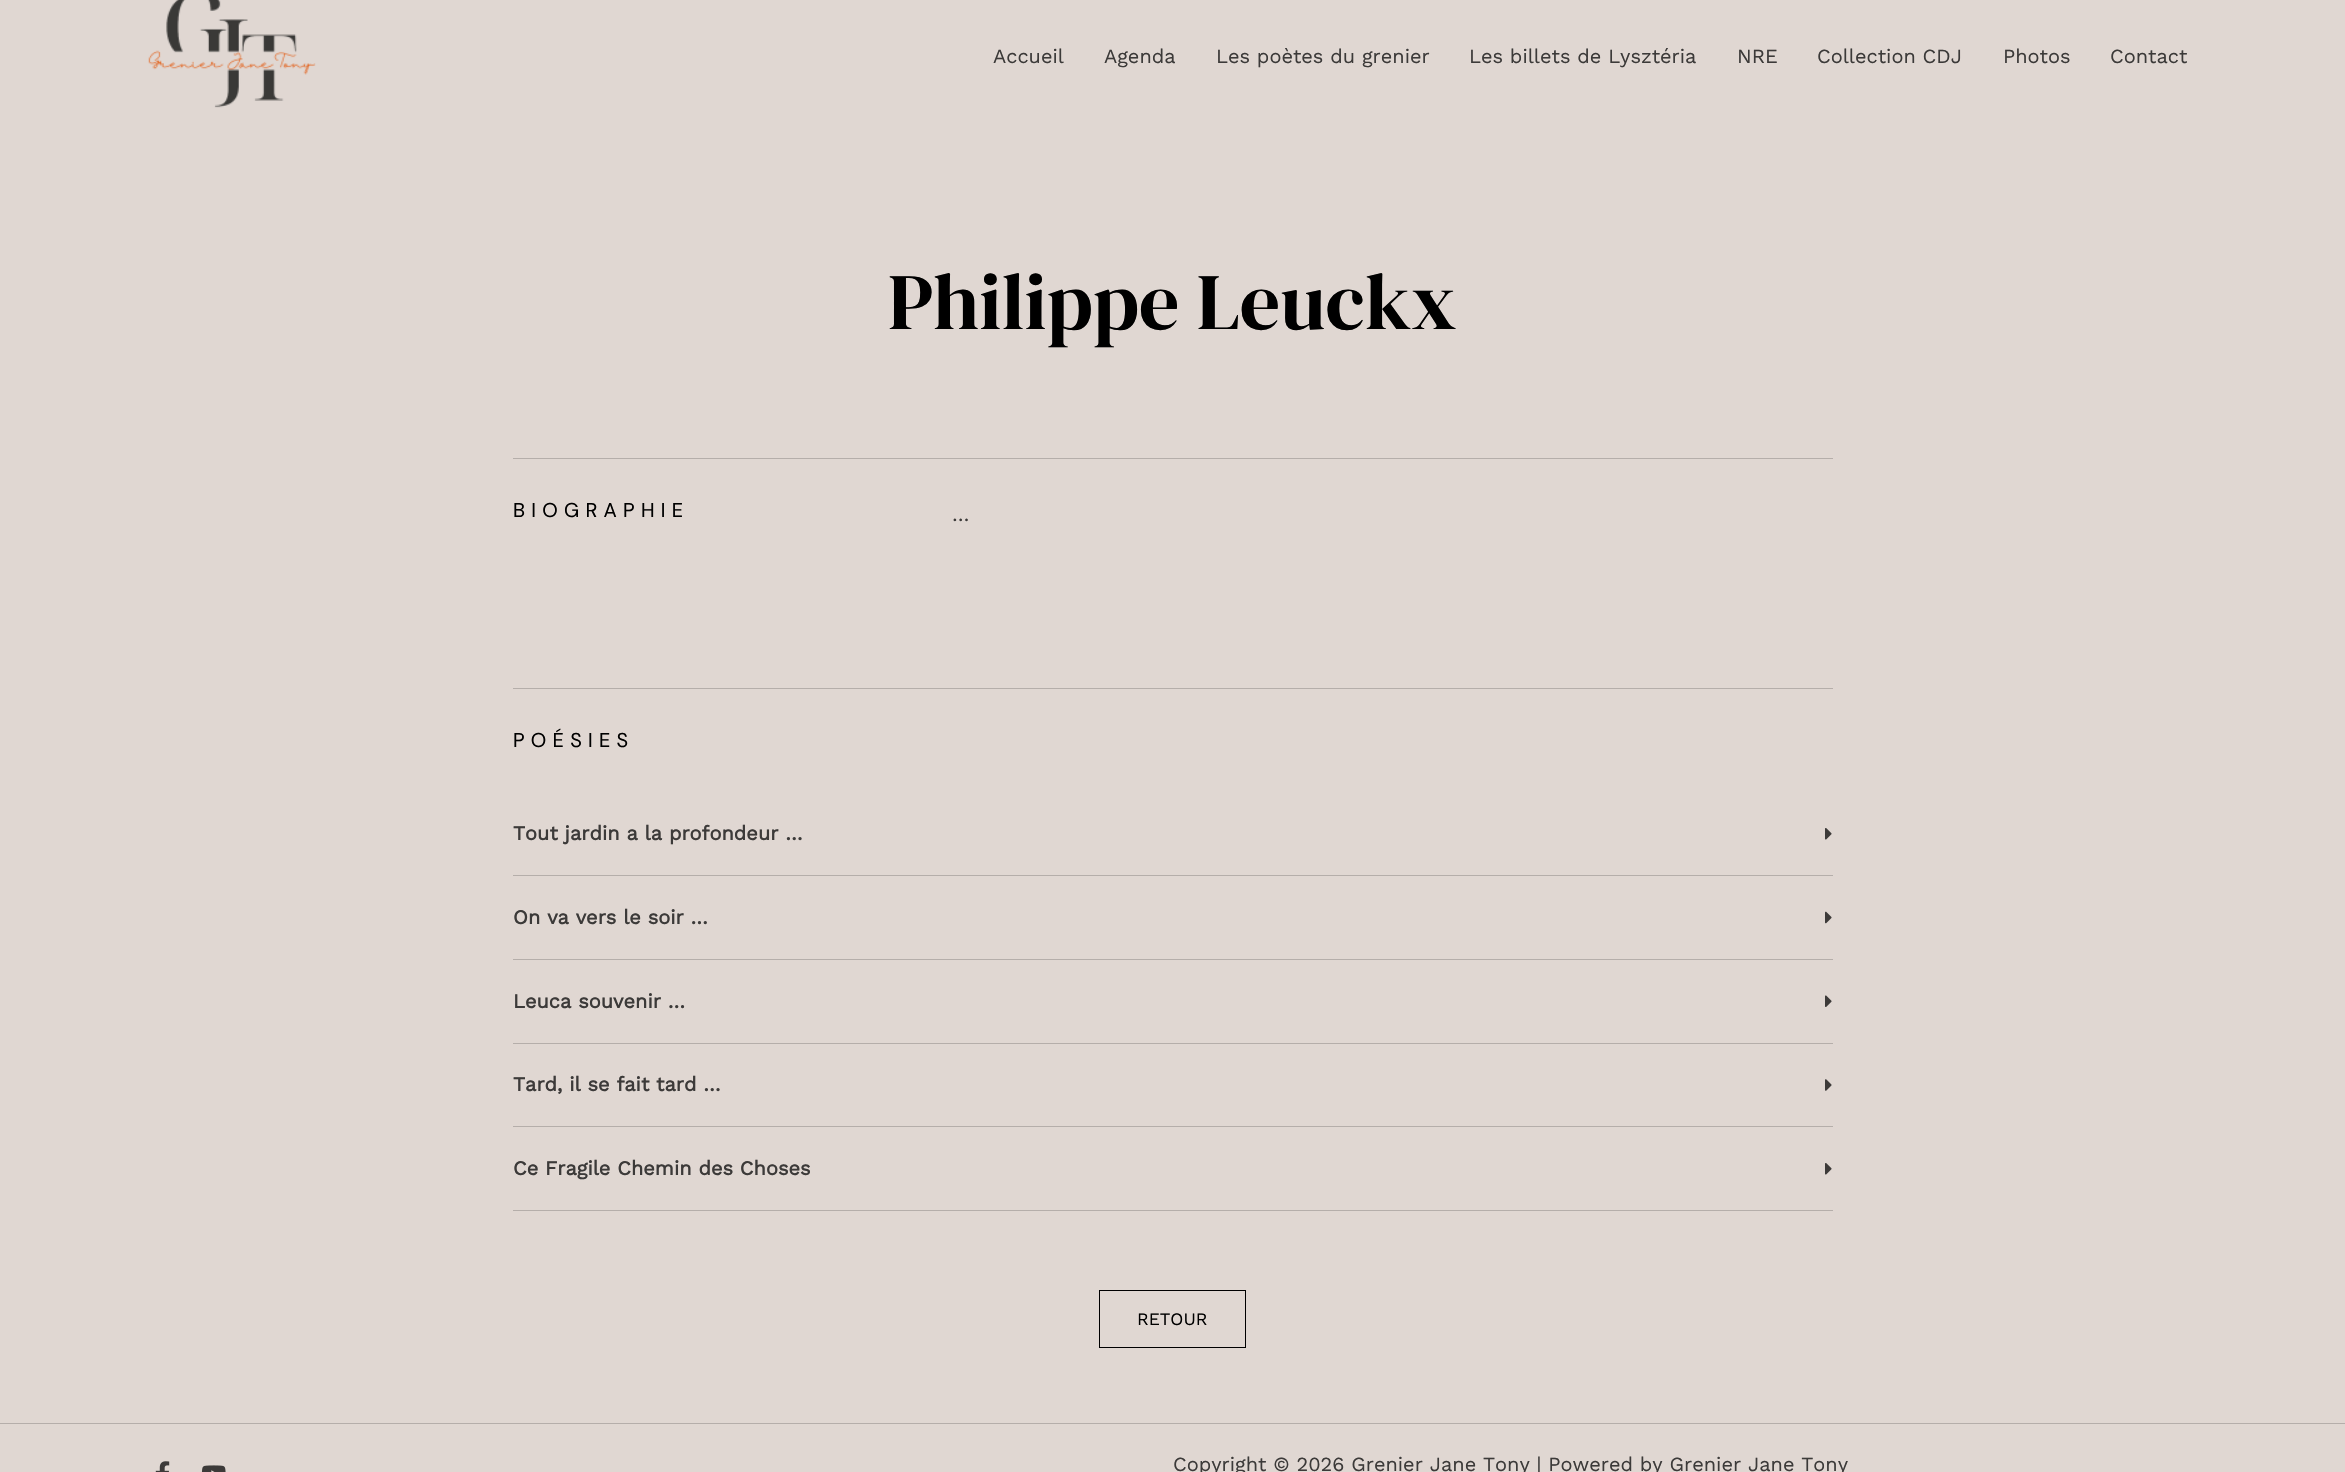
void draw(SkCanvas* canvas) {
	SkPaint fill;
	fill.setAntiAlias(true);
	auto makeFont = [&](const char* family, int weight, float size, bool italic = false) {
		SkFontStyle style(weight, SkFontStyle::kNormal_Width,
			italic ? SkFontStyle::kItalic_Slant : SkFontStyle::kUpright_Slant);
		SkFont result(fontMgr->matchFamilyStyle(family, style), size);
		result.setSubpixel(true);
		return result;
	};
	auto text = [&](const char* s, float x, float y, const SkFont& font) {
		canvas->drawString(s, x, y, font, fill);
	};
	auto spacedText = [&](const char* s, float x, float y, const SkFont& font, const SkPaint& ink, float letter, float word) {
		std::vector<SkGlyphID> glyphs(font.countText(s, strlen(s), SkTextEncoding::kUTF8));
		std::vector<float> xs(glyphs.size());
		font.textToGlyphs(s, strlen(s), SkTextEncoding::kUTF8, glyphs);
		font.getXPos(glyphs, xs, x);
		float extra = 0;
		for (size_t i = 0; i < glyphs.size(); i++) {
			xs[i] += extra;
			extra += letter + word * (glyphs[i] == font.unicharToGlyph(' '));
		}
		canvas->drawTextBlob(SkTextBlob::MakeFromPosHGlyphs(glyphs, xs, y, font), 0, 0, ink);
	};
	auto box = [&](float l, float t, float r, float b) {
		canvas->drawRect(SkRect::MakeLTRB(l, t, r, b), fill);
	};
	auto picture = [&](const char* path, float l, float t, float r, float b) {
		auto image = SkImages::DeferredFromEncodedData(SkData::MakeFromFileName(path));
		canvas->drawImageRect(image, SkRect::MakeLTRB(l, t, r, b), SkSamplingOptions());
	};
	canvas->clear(0xFFE0D7D2);
	picture("image0.png", 148, 0, 316, 108);
	fill.setColor(0xFFB5AEAA);
	box(513, 458, 1833, 459);
	box(513, 688, 1833, 689);
	box(513, 875, 1833, 876);
	picture("image1.png", 1825, 828, 1832, 840);
	box(513, 959, 1833, 960);
	picture("image2.png", 1825, 911, 1832, 924);
	box(513, 1043, 1833, 1044);
	picture("image3.png", 1825, 995, 1832, 1007);
	box(513, 1126, 1833, 1127);
	picture("image4.png", 1825, 1079, 1832, 1091);
	box(513, 1210, 1833, 1211);
	picture("image1.png", 1825, 1163, 1832, 1175);
	fill.setStyle(SkPaint::kStroke_Style);
	fill.setStrokeWidth(1);
	fill.setColor(0xFF000000);
	canvas->drawRect(SkRect::MakeLTRB(1099.5f, 1290.5f, 1245.5f, 1347.5f), fill);
	fill.setStyle(SkPaint::kFill_Style);
	fill.setColor(0xFFB5AEAA);
	box(0, 1423, 2345, 1424);
	picture("image5.png", 155, 1461, 170, 1472);
	picture("image6.png", 201, 1465, 226, 1472);
	auto font1 = makeFont("Work Sans", 400, 20);
	fill.setColor(0xFF3C3A39);
	text("Accueil", 993, 63, font1);
	text("Agenda", 1104, 63, font1);
	text("Les poètes du grenier", 1216, 63, font1);
	text("Les billets de Lysztéria", 1469, 63, font1);
	text("NRE", 1737, 63, font1);
	text("Collection CDJ", 1817, 63, font1);
	text("Photos", 2003, 63, font1);
	text("Contact", 2110, 63, font1);
	auto font2 = makeFont("DM Serif Display", 400, 79.75f);
	fill.setColor(0xFF000000);
	text("Philippe Leuckx", 888, 329, font2);
	auto font3 = makeFont("DM Sans", 400, 20);
	spacedText("BIOGRAPHIE", 513, 517, font3, fill, 6.25f, 0);
	fill.setColor(0xFF3C3A39);
	text("…", 952, 521, font1);
	fill.setColor(0xFF000000);
	spacedText("POÉSIES", 513, 747, font3, fill, 6.25f, 0);
	auto font4 = makeFont("Work Sans", 700, 20);
	fill.setColor(0xFF3C3A39);
	text("Tout jardin a la profondeur …", 513, 840, font4);
	text("On va vers le soir …", 513, 924, font4);
	text("Leuca souvenir …", 513, 1008, font4);
	text("Tard, il se fait tard …", 513, 1091, font4);
	text("Ce Fragile Chemin des Choses", 513, 1175, font4);
	auto font5 = makeFont("Work Sans", 400, 17.5f);
	fill.setColor(0xFF000000);
	text("RETOUR", 1137, 1325, font5);
	fill.setColor(0xFF3C3A39);
	text("Copyright © 2026 Grenier Jane Tony | Powered by Grenier Jane Tony", 1173, 1471, font1);
}
